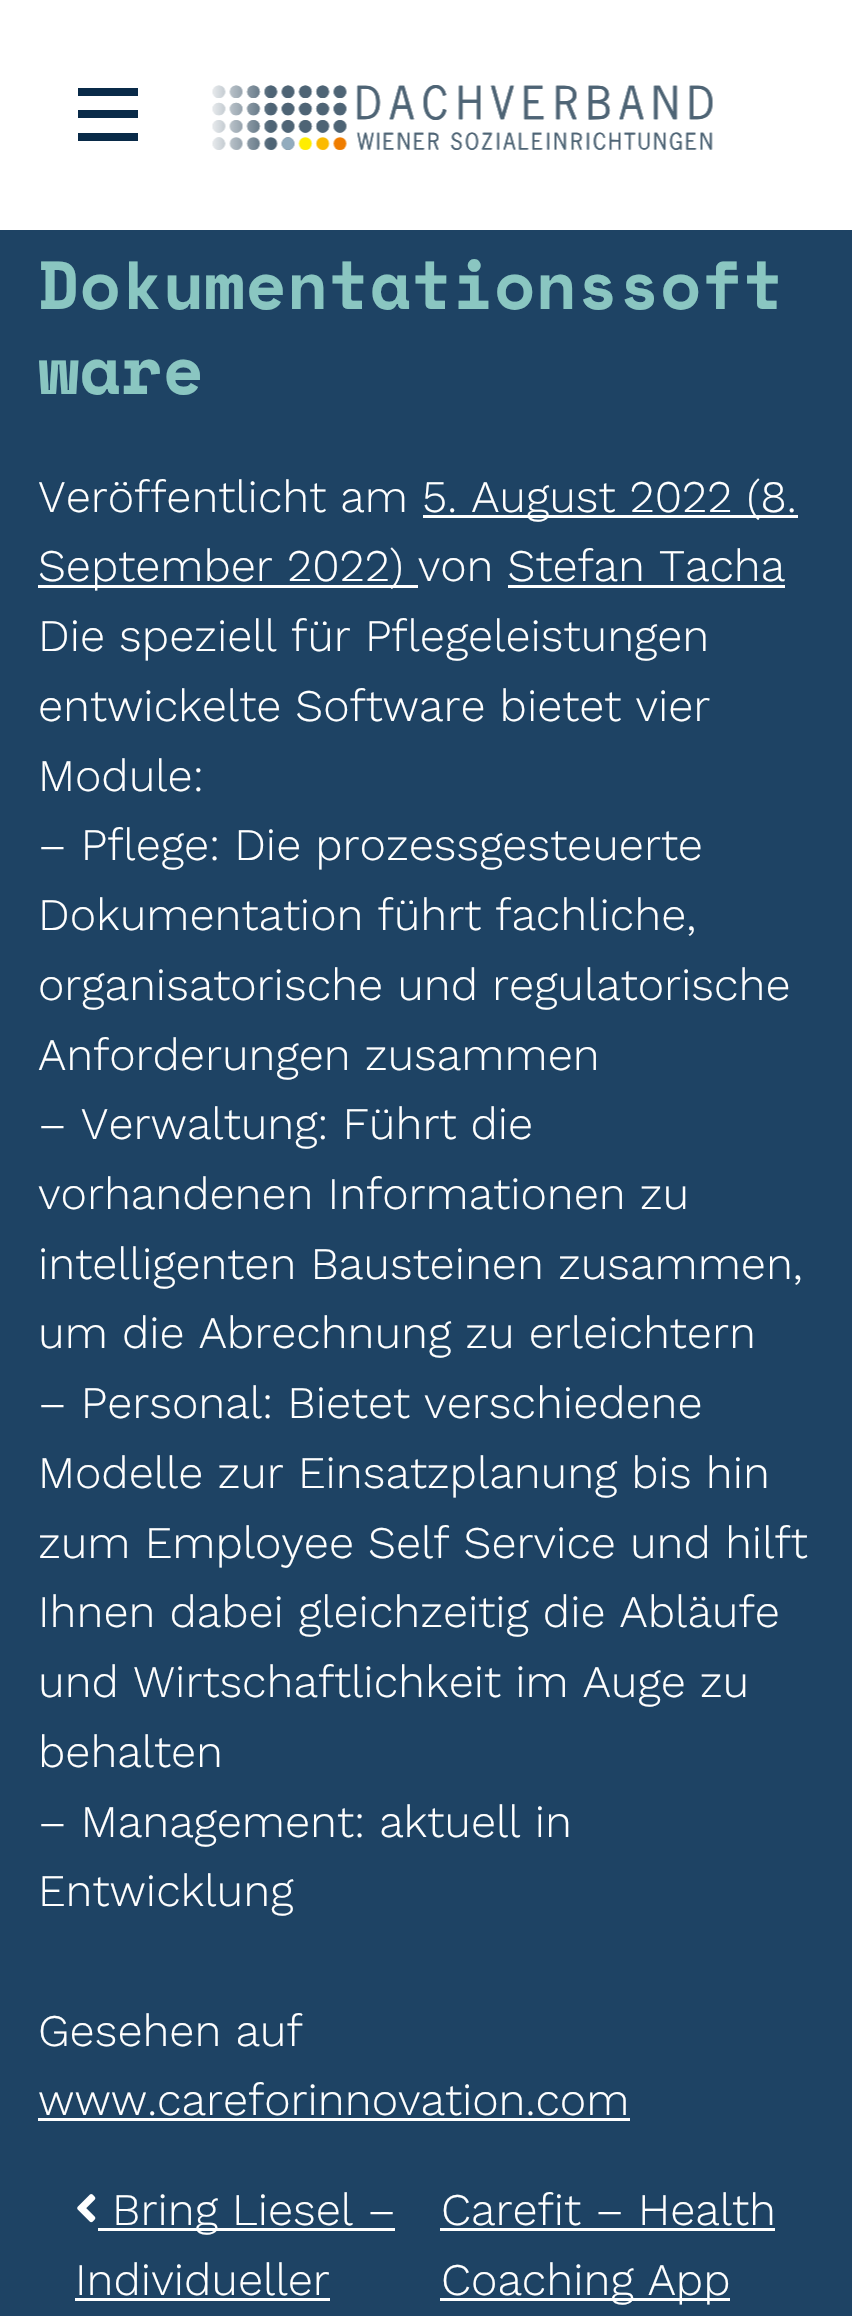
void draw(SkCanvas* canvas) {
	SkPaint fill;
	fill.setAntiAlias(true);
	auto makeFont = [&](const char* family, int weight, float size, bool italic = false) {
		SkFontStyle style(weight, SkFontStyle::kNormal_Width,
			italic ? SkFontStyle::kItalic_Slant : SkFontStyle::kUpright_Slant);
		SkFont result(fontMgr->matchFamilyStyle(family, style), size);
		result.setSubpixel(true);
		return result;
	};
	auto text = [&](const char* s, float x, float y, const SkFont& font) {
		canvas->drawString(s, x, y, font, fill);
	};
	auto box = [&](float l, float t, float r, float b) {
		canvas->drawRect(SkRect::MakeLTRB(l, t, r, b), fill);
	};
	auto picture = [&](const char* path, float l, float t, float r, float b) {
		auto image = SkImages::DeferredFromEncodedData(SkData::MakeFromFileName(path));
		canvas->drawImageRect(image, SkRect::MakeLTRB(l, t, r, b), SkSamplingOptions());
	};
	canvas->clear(0xFF1E4364);
	fill.setColor(0xFFFFFFFF);
	box(0, 0, 852, 230);
	fill.setColor(0xFF092A48);
	box(78, 88, 138, 96);
	box(78, 110, 138, 118);
	box(78, 133, 138, 141);
	picture("image0.png", 212, 85, 713, 150);
	fill.setColor(0xFFFFFFFF);
	box(423, 515, 798, 518);
	box(38, 585, 418, 588);
	box(508, 585, 785, 588);
	box(38, 2118, 630, 2121);
	picture("image1.png", 77, 2194, 96, 2223);
	box(98, 2228, 395, 2231);
	box(75, 2298, 330, 2301);
	box(440, 2228, 775, 2231);
	box(440, 2298, 730, 2301);
	auto font1 = makeFont("Space Mono", 700, 67.75f);
	fill.setColor(0xFF8AC6C1);
	text("Dokumentationssoft", 38, 309, font1);
	text("ware", 38, 394, font1);
	auto font2 = makeFont("Work Sans", 300, 45);
	fill.setColor(0xFFFFFFFF);
	text("Veröffentlicht am", 38, 512, font2);
	text("5. August 2022 (8.", 422, 512, font2);
	text("September 2022) von Stefan Tacha", 38, 581, font2);
	text("Die speziell für Pflegeleistungen", 38, 651, font2);
	text("entwickelte Software bietet vier", 38, 721, font2);
	text("Module:", 38, 791, font2);
	text("– Pflege: Die prozessgesteuerte", 38, 860, font2);
	text("Dokumentation führt fachliche,", 38, 930, font2);
	text("organisatorische und regulatorische", 38, 1000, font2);
	text("Anforderungen zusammen", 38, 1070, font2);
	text("– Verwaltung: Führt die", 38, 1139, font2);
	text("vorhandenen Informationen zu", 38, 1209, font2);
	text("intelligenten Bausteinen zusammen,", 38, 1279, font2);
	text("um die Abrechnung zu erleichtern", 38, 1348, font2);
	text("– Personal: Bietet verschiedene", 38, 1418, font2);
	text("Modelle zur Einsatzplanung bis hin", 38, 1488, font2);
	text("zum Employee Self Service und hilft", 38, 1558, font2);
	text("Ihnen dabei gleichzeitig die Abläufe", 38, 1627, font2);
	text("und Wirtschaftlichkeit im Auge zu", 38, 1697, font2);
	text("behalten", 38, 1767, font2);
	text("– Management: aktuell in", 38, 1837, font2);
	text("Entwicklung", 38, 1906, font2);
	text("Gesehen auf", 38, 2046, font2);
	text("www.careforinnovation.com", 38, 2115, font2);
	text("Bring Liesel –", 112, 2225, font2);
	text("Individueller", 75, 2295, font2);
	text("Carefit – Health", 441, 2225, font2);
	text("Coaching App", 441, 2295, font2);
}
